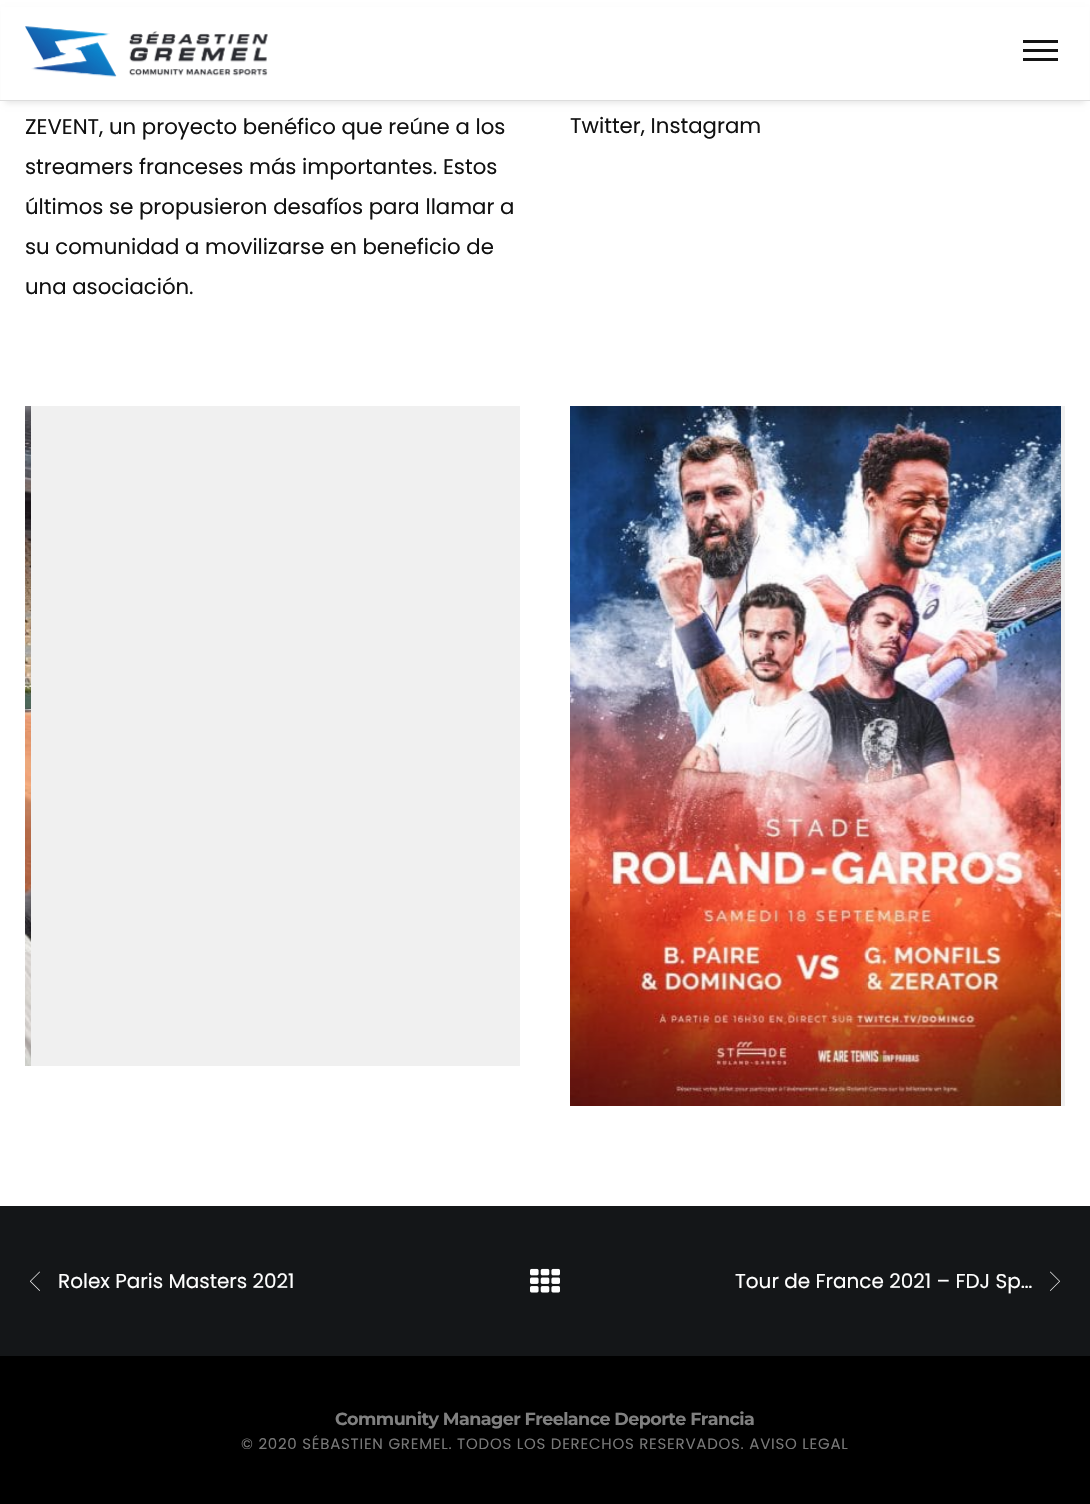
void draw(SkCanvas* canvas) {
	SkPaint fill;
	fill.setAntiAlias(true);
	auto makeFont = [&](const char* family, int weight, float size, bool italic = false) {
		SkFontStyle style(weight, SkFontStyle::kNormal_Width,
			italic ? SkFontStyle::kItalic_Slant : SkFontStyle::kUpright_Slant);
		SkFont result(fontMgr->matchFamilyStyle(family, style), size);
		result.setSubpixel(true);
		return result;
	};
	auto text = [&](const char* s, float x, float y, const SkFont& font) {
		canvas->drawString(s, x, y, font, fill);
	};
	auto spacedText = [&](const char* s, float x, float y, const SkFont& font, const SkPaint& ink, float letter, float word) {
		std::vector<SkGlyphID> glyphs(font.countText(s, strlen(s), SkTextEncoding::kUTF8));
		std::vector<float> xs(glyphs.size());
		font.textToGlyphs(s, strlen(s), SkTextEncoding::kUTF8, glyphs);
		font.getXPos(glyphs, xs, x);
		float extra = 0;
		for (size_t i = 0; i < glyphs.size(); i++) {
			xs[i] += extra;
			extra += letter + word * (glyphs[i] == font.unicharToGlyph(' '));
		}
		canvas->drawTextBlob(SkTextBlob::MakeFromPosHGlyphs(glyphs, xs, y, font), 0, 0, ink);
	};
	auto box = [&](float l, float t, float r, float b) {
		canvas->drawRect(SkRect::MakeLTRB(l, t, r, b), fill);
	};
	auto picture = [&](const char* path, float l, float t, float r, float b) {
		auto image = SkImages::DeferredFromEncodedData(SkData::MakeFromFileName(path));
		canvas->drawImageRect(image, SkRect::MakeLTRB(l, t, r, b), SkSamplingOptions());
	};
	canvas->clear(0xFFFFFFFF);
	fill.setColor(0x1A000000);
	fill.setMaskFilter(SkMaskFilter::MakeBlur(kNormal_SkBlurStyle, 3));
	canvas->drawRect(SkRect::MakeLTRB(5, 11, 1085, 103), fill);
	fill.setMaskFilter(nullptr);
	fill.setColor(0xFFFFFFFF);
	box(1, 7, 1089, 100);
	fill.setColor(0xFFDDDDDD);
	box(0, 100, 1090, 101);
	picture("image0.png", 25, 26, 268, 77);
	fill.setColor(0xFF151515);
	box(1023, 49, 1058, 52);
	box(1023, 40, 1058, 43);
	box(1023, 58, 1058, 61);
	picture("image1.png", 25, 406, 31, 1066);
	fill.setColor(0xFFF0F0F0);
	box(31, 406, 520, 1066);
	picture("image2.png", 570, 406, 1061, 1106);
	box(1061, 406, 1065, 1106);
	fill.setColor(0xFF141618);
	box(0, 1206, 1090, 1356);
	picture("image3.png", 30, 1271, 40, 1291);
	picture("image4.png", 530, 1268, 560, 1293);
	picture("image5.png", 1050, 1271, 1060, 1291);
	fill.setColor(0xFF000000);
	box(0, 1356, 1090, 1504);
	auto font1 = makeFont("Poppins", 400, 21.25f);
	fill.setColor(0xFF111111);
	text("ZEVENT, un proyecto benéfico que reúne a los", 25, 134, font1);
	text("streamers franceses más importantes. Estos", 25, 174, font1);
	text("últimos se propusieron desafíos para llamar a", 25, 214, font1);
	text("su comunidad a movilizarse en beneficio de", 25, 254, font1);
	text("una asociación.", 25, 294, font1);
	text("Twitter, Instagram", 570, 133, font1);
	auto font2 = makeFont("Poppins", 400, 20);
	fill.setColor(0xFFFFFFFF);
	text("Rolex Paris Masters 2021", 58, 1288, font2);
	text("Tour de France 2021 – FDJ Sp…", 735, 1288, font2);
	auto font3 = makeFont("Montserrat", 700, 17.5f);
	fill.setColor(0xFF808080);
	spacedText("Community Manager Freelance Deporte Francia", 335, 1425, font3, fill, -0.55f, 0);
	auto font4 = makeFont("Poppins", 400, 15);
	fill.setColor(0xFF777777);
	spacedText("© 2020 SÉBASTIEN GREMEL. TODOS LOS DERECHOS RESERVADOS. AVISO LEGAL", 241, 1449, font4, fill, 0.75f, 0);
}
